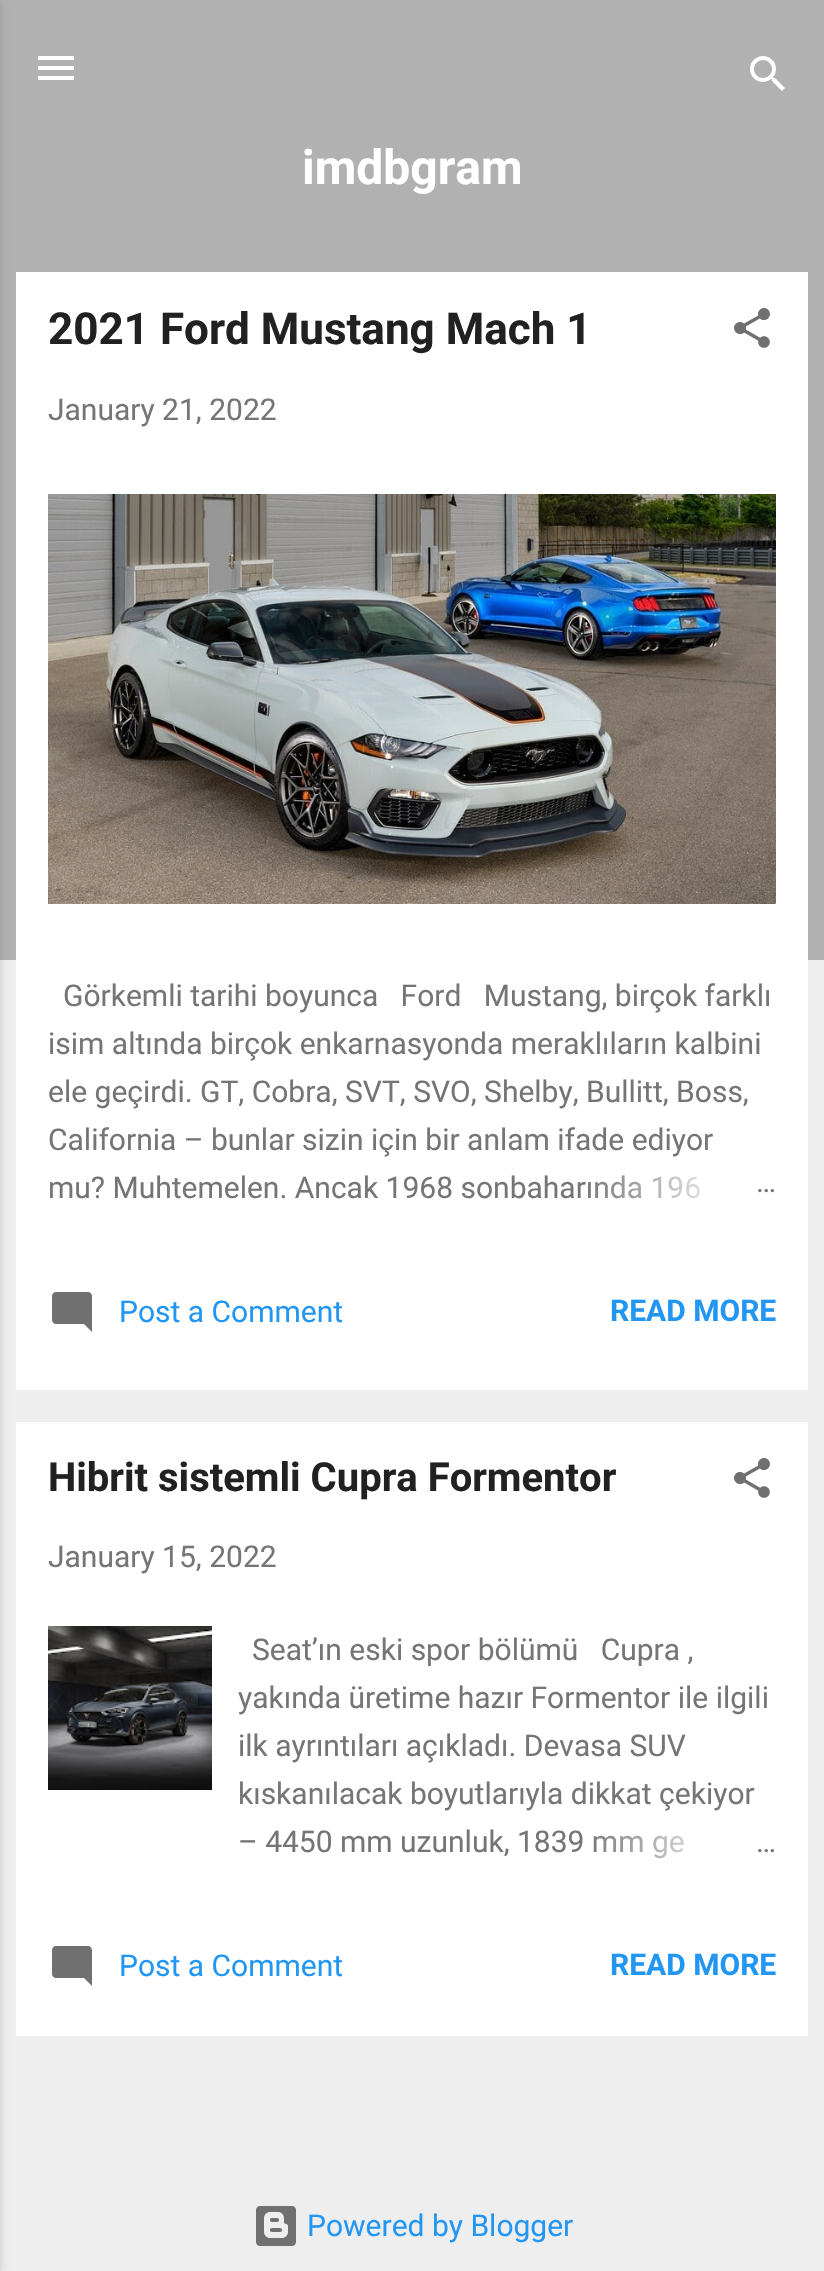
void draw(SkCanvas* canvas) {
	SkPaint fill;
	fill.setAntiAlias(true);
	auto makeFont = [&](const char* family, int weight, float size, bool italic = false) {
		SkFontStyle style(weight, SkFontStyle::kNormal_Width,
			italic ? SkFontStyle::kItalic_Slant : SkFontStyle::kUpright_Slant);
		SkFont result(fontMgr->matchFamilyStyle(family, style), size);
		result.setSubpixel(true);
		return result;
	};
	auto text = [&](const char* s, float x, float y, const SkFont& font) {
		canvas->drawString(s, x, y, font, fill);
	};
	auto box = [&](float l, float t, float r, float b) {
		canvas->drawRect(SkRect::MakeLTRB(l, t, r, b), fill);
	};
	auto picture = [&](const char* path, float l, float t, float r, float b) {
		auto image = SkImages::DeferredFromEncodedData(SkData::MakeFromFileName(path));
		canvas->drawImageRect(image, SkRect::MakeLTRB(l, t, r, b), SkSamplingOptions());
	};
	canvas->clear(0xFFEEEEEE);
	fill.setColor(0xFFB1B1B1);
	box(0, 0, 824, 960);
	fill.setColor(0x1A000000);
	fill.setMaskFilter(SkMaskFilter::MakeBlur(kNormal_SkBlurStyle, 3));
	canvas->drawRect(SkRect::MakeLTRB(-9, 2, 2, 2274), fill);
	fill.setMaskFilter(nullptr);
	picture("image0.png", 38, 56, 74, 80);
	picture("image1.png", 750, 56, 785, 91);
	fill.setColor(0xFFFFFFFF);
	box(16, 272, 808, 1390);
	picture("image2.png", 734, 308, 770, 348);
	picture("image3.png", 48, 494, 776, 904);
	picture("image4.png", 52, 1292, 92, 1332);
	box(16, 1422, 808, 2036);
	picture("image2.png", 734, 1458, 770, 1498);
	picture("image5.png", 48, 1626, 212, 1790);
	picture("image4.png", 52, 1946, 92, 1986);
	picture("image6.png", 256, 2206, 296, 2246);
	auto font1 = makeFont("Roboto", 700, 48);
	text("imdbgram", 302, 184, font1);
	auto font2 = makeFont("Roboto", 700, 44);
	fill.setColor(0xFF212121);
	text("2021 Ford Mustang Mach 1", 48, 344, font2);
	auto font3 = makeFont("Roboto", 400, 30);
	fill.setColor(0xFF757575);
	text("January 21, 2022", 48, 420, font3);
	text("Görkemli tarihi boyunca   Ford   Mustang, birçok farklı", 63, 1006, font3);
	text("isim altında birçok enkarnasyonda meraklıların kalbini", 48, 1054, font3);
	text("ele geçirdi. GT, Cobra, SVT, SVO, Shelby, Bullitt, Boss,", 48, 1102, font3);
	text("California – bunlar sizin için bir anlam ifade ediyor", 48, 1150, font3);
	text("mu? Muhtemelen. Ancak 1968 sonbaharında 196", 48, 1198, font3);
	{
		const SkColor colors[] = {0xFFFFFFFF, 0xFFFFFFFF, 0x00FFFFFF};
		const float stops[] = {0, 0.2f, 1};
		const SkPoint ends[] = {{776, 1188}, {584, 1188}};
		fill.setShader(SkGradientShader::MakeLinear(ends, colors, stops, 3, SkTileMode::kClamp));
		fill.setAlpha(255);
	}
	box(588, 1175, 700, 1199);
	fill.setShader(nullptr);
	fill.setColor(0xFF757575);
	text("…", 756, 1192, font3);
	fill.setColor(0xFF2196F3);
	text("Post a Comment", 119, 1322, font3);
	auto font4 = makeFont("Roboto", 700, 30);
	text("READ MORE", 610, 1321, font4);
	auto font5 = makeFont("Roboto", 700, 40);
	fill.setColor(0xFF212121);
	text("Hibrit sistemli Cupra Formentor", 48, 1491, font5);
	fill.setColor(0xFF757575);
	text("January 15, 2022", 48, 1567, font3);
	text("Seat’ın eski spor bölümü   Cupra ,", 252, 1660, font3);
	text("yakında üretime hazır Formentor ile ilgili", 238, 1708, font3);
	text("ilk ayrıntıları açıkladı. Devasa SUV", 238, 1756, font3);
	text("kıskanılacak boyutlarıyla dikkat çekiyor", 238, 1804, font3);
	text("– 4450 mm uzunluk, 1839 mm ge", 238, 1852, font3);
	{
		const SkColor colors[] = {0xFFFFFFFF, 0xFFFFFFFF, 0x00FFFFFF};
		const float stops[] = {0, 0.2f, 1};
		const SkPoint ends[] = {{776, 1842}, {584, 1842}};
		fill.setShader(SkGradientShader::MakeLinear(ends, colors, stops, 3, SkTileMode::kClamp));
		fill.setAlpha(255);
	}
	box(593, 1835, 684, 1859);
	fill.setShader(nullptr);
	fill.setColor(0xFF757575);
	text("…", 756, 1852, font3);
	fill.setColor(0xFF2196F3);
	text("Post a Comment", 119, 1976, font3);
	text("READ MORE", 610, 1975, font4);
	text("Powered by Blogger", 307, 2236, font3);
}
